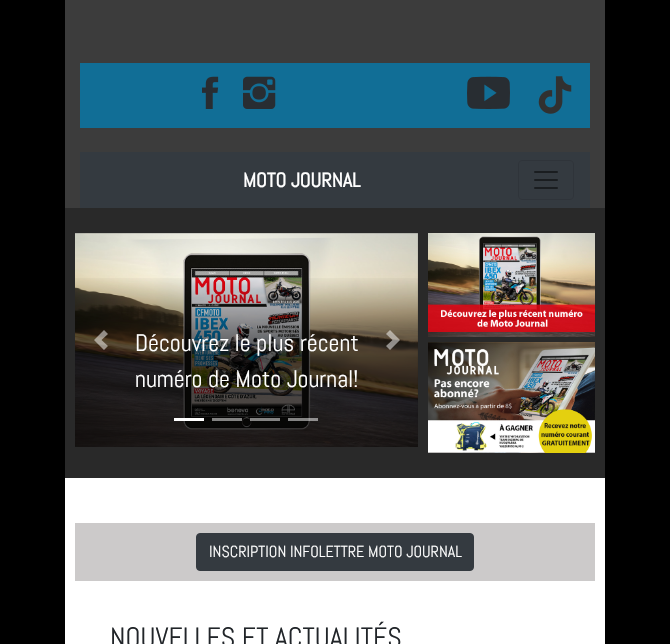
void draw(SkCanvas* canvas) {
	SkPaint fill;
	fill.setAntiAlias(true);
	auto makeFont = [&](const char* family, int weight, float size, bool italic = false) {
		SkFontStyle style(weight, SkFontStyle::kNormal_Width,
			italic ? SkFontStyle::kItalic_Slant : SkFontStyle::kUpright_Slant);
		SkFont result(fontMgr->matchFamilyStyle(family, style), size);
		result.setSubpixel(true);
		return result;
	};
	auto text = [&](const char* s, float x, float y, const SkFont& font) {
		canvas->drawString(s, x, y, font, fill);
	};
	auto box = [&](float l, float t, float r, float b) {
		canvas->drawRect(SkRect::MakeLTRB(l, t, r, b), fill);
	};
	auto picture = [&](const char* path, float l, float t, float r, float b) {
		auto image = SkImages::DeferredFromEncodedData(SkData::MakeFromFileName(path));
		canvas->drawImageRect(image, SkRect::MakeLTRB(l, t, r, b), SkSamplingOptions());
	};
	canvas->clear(0xFF000000);
	fill.setColor(0xFF3C3C3C);
	box(65, 0, 605, 208);
	fill.setColor(0xFF116E96);
	box(80, 63, 590, 128);
	picture("image0.png", 202, 76, 219, 109);
	picture("image1.png", 243, 76, 276, 109);
	picture("image2.png", 467, 76, 510, 109);
	picture("image3.png", 538, 76, 572, 114);
	fill.setColor(0xFF343A40);
	box(80, 152, 590, 208);
	fill.setStyle(SkPaint::kStroke_Style);
	fill.setStrokeWidth(1);
	fill.setColor(0xFF2F343A);
	canvas->drawRoundRect(SkRect::MakeLTRB(518.5f, 160.5f, 573.5f, 199.5f), 3.5f, 3.5f, fill);
	picture("image4.png", 534, 171, 558, 189);
	fill.setStyle(SkPaint::kFill_Style);
	fill.setColor(0xFFFFFFFF);
	box(65, 478, 605, 644);
	fill.setColor(0xFF292929);
	box(65, 208, 605, 478);
	picture("image5.png", 75, 233, 418, 447);
	{
		const SkColor colors[] = {0x00000000, 0xA6000000, 0xA6000000};
		const float stops[] = {0, 0.48f, 0.86f};
		const SkPoint ends[] = {{247, 275}, {247, 447}};
		fill.setShader(SkGradientShader::MakeLinear(ends, colors, stops, 3, SkTileMode::kClamp));
		fill.setAlpha(255);
	}
	box(75, 278, 418, 447);
	fill.setShader(nullptr);
	fill.setColor(0x80FFFFFF);
	canvas->drawPath(SkPathBuilder().moveTo(104, 330).lineTo(94, 340).lineTo(104, 350).lineTo(108, 346).lineTo(101.5f, 340).lineTo(108, 334).close().detach(), fill);
	canvas->drawPath(SkPathBuilder().moveTo(390, 330).lineTo(386, 334).lineTo(392.5f, 340).lineTo(386, 346).lineTo(390, 350).lineTo(400, 340).close().detach(), fill);
	fill.setColor(0xFFFFFFFF);
	box(174, 418, 204, 421);
	fill.setColor(0xFF838382);
	box(212, 418, 242, 421);
	fill.setColor(0x80FFFFFF);
	box(250, 418, 280, 421);
	box(288, 418, 318, 421);
	picture("image6.png", 428, 233, 595, 337);
	picture("image7.png", 428, 342, 595, 453);
	fill.setColor(0xFFCCCACA);
	box(75, 523, 595, 581);
	fill.setColor(0xFF343A40);
	canvas->drawRoundRect(SkRect::MakeLTRB(196.5f, 533.5f, 473.5f, 570.5f), 3.5f, 3.5f, fill);
	fill.setStyle(SkPaint::kStroke_Style);
	canvas->drawRoundRect(SkRect::MakeLTRB(196.5f, 533.5f, 473.5f, 570.5f), 3.5f, 3.5f, fill);
	auto font1 = makeFont("Abel", 700, 20);
	fill.setStyle(SkPaint::kFill_Style);
	fill.setColor(0xFFFFFFFF);
	text("MOTO JOURNAL", 243, 187, font1);
	auto font2 = makeFont("Abel", 400, 24);
	text("Découvrez le plus récent", 135, 351, font2);
	text("numéro de Moto Journal!", 135, 387, font2);
	auto font3 = makeFont("Abel", 400, 16);
	text("INSCRIPTION INFOLETTRE MOTO JOURNAL", 209, 557, font3);
	auto font4 = makeFont("Abel", 400, 28);
	fill.setColor(0xFF212529);
	text("NOUVELLES ET ACTUALITÉS", 110, 647, font4);
}
